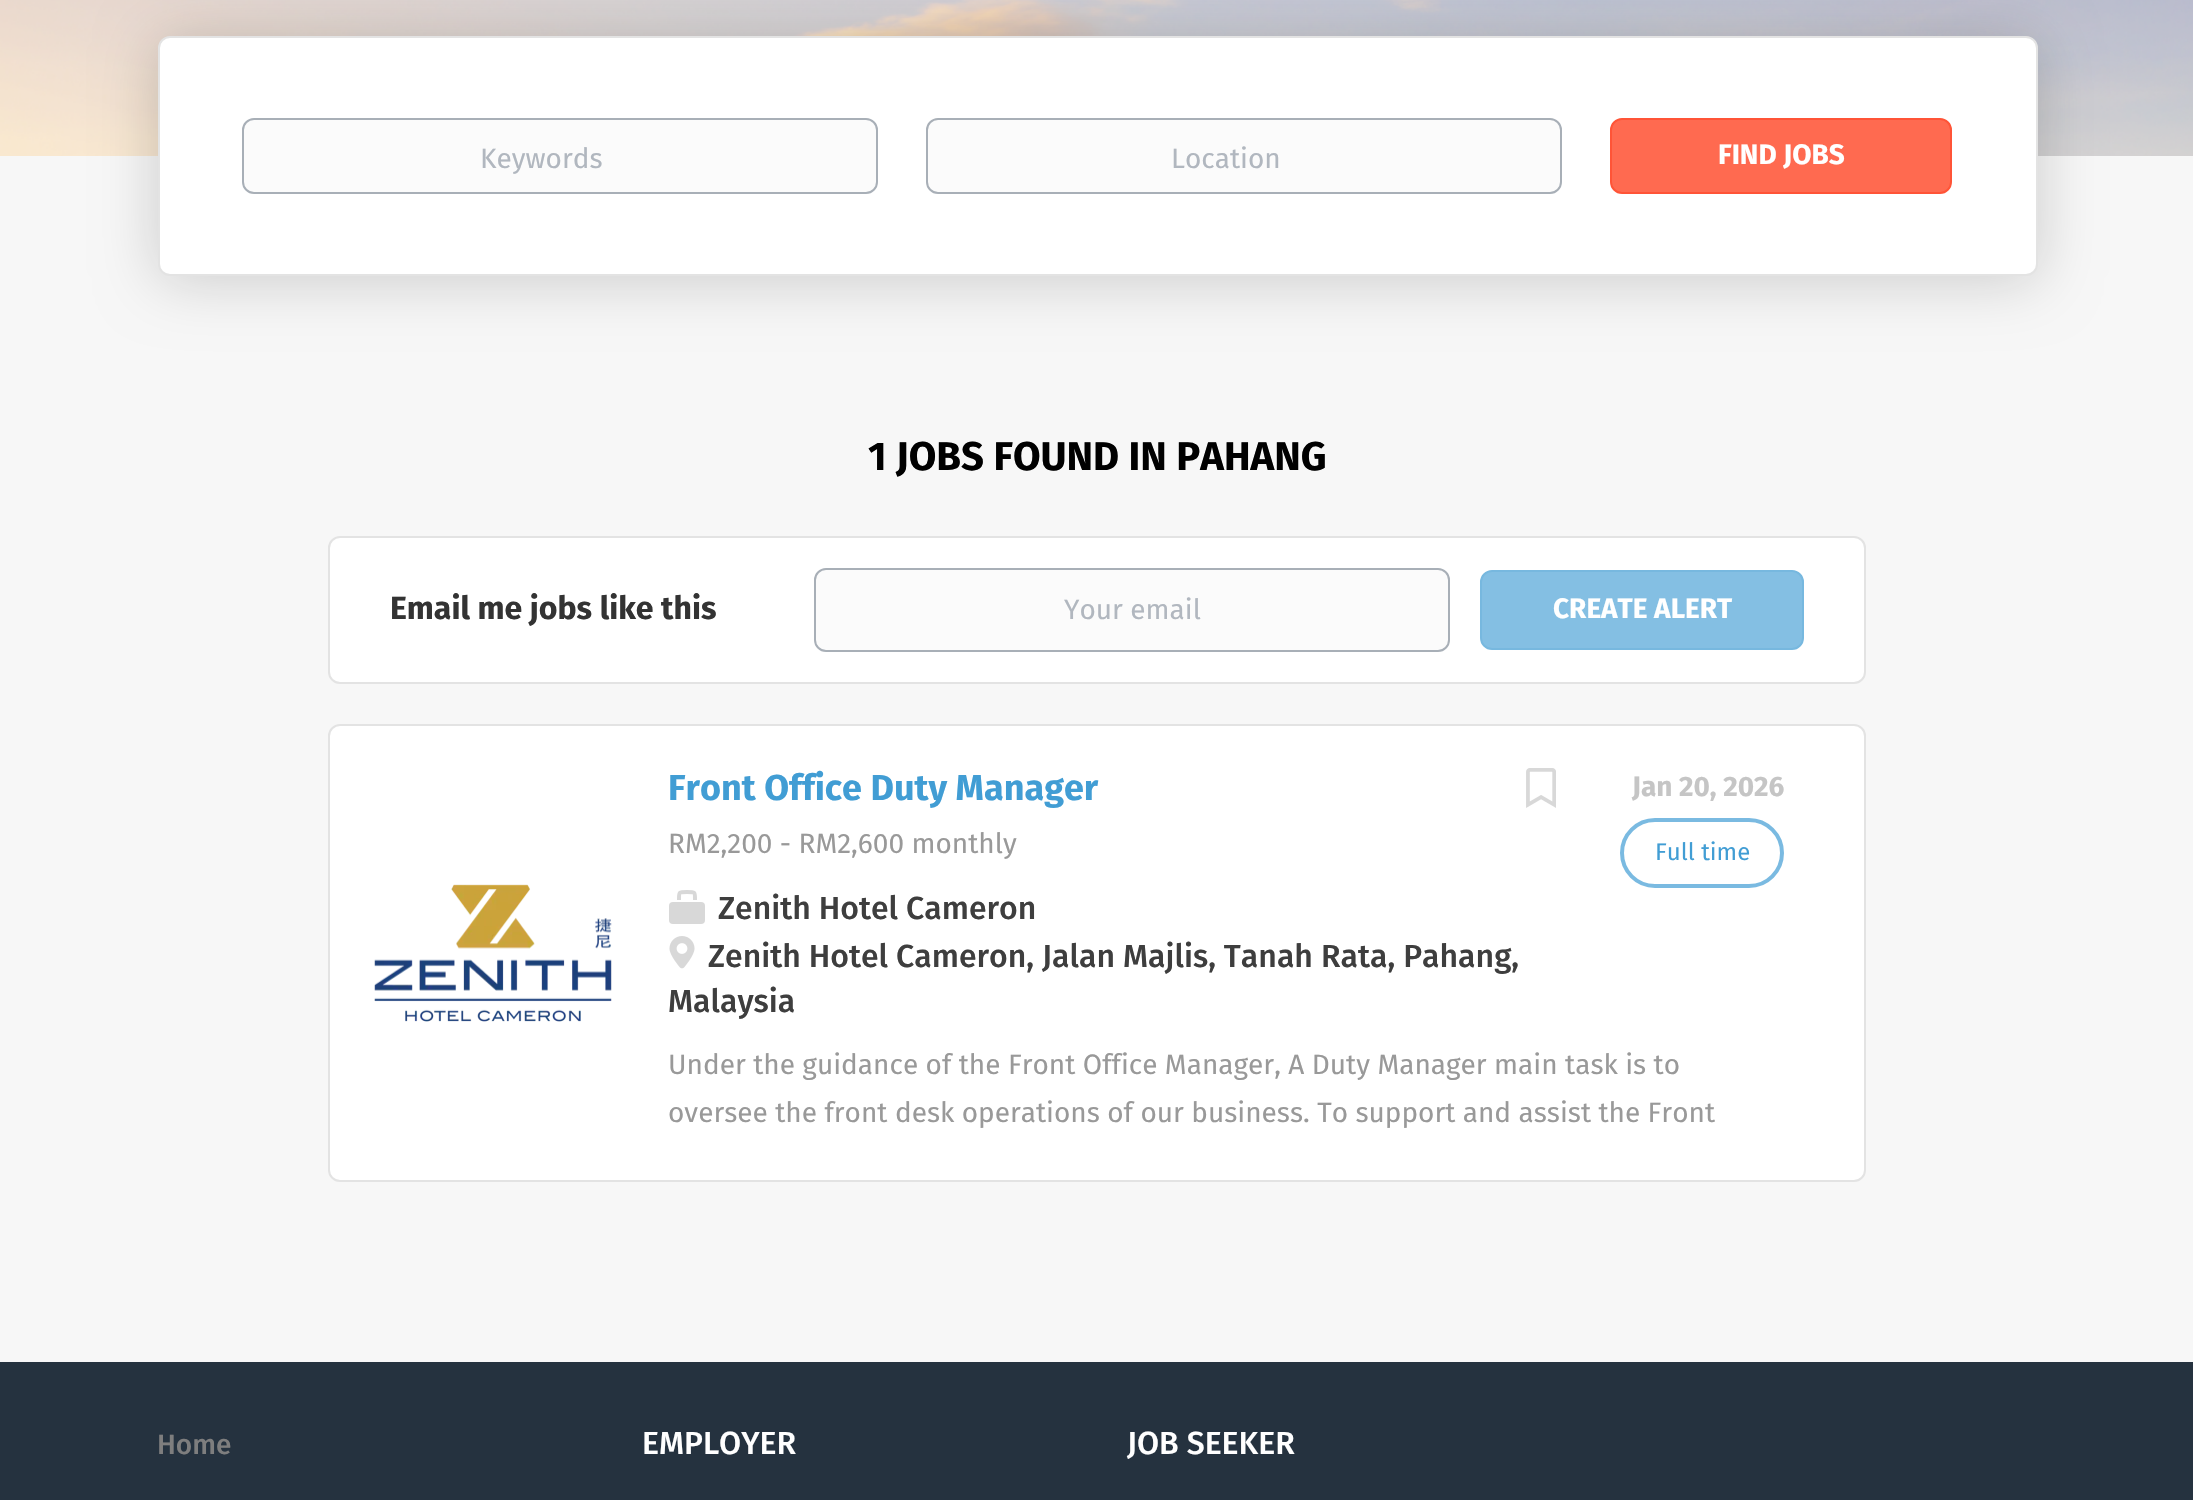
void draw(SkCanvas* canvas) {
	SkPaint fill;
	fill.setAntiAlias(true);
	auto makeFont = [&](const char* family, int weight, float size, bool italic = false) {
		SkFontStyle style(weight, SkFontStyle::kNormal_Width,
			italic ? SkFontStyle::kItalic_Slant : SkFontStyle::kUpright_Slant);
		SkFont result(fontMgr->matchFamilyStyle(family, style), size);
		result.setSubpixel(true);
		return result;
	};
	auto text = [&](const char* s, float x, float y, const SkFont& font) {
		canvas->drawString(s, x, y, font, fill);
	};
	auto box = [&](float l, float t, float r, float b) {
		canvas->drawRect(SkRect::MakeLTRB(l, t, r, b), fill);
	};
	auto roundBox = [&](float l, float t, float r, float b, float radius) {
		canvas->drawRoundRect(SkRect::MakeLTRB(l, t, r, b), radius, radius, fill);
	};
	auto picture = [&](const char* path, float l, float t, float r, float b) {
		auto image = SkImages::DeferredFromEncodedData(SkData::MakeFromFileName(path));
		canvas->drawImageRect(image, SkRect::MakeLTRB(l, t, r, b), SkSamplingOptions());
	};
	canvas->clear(0xFFF7F7F7);
	picture("image0.png", 0, 0, 2193, 156);
	fill.setColor(0x2E000000);
	fill.setMaskFilter(SkMaskFilter::MakeBlur(kNormal_SkBlurStyle, 30));
	canvas->drawRoundRect(SkRect::MakeLTRB(158, 40, 2038, 280), 12, 12, fill);
	fill.setMaskFilter(nullptr);
	fill.setColor(0xFFFFFFFF);
	canvas->drawRoundRect(SkRect::MakeLTRB(159, 37, 2037, 275), 11, 11, fill);
	fill.setStyle(SkPaint::kStroke_Style);
	fill.setStrokeWidth(2);
	fill.setColor(0xFFE3E3E3);
	canvas->drawRoundRect(SkRect::MakeLTRB(159, 37, 2037, 275), 11, 11, fill);
	fill.setStyle(SkPaint::kFill_Style);
	fill.setColor(0xFFFBFBFB);
	canvas->drawRoundRect(SkRect::MakeLTRB(243, 119, 877, 193), 11, 11, fill);
	fill.setStyle(SkPaint::kStroke_Style);
	fill.setColor(0xFFA8AFB7);
	canvas->drawRoundRect(SkRect::MakeLTRB(243, 119, 877, 193), 11, 11, fill);
	fill.setStyle(SkPaint::kFill_Style);
	fill.setColor(0xFFFBFBFB);
	canvas->drawRoundRect(SkRect::MakeLTRB(927, 119, 1561, 193), 11, 11, fill);
	fill.setStyle(SkPaint::kStroke_Style);
	fill.setColor(0xFFA8AFB7);
	canvas->drawRoundRect(SkRect::MakeLTRB(927, 119, 1561, 193), 11, 11, fill);
	fill.setStyle(SkPaint::kFill_Style);
	fill.setColor(0xFFFF6A50);
	canvas->drawRoundRect(SkRect::MakeLTRB(1611, 119, 1951, 193), 11, 11, fill);
	fill.setStyle(SkPaint::kStroke_Style);
	fill.setColor(0xFFFF5437);
	canvas->drawRoundRect(SkRect::MakeLTRB(1611, 119, 1951, 193), 11, 11, fill);
	fill.setStyle(SkPaint::kFill_Style);
	fill.setColor(0xFFFFFFFF);
	canvas->drawRoundRect(SkRect::MakeLTRB(329, 537, 1865, 683), 11, 11, fill);
	fill.setStyle(SkPaint::kStroke_Style);
	fill.setColor(0xFFE3E3E3);
	canvas->drawRoundRect(SkRect::MakeLTRB(329, 537, 1865, 683), 11, 11, fill);
	fill.setStyle(SkPaint::kFill_Style);
	fill.setColor(0xFFFBFBFB);
	canvas->drawRoundRect(SkRect::MakeLTRB(815, 569, 1449, 651), 11, 11, fill);
	fill.setStyle(SkPaint::kStroke_Style);
	fill.setColor(0xFFA8AFB7);
	canvas->drawRoundRect(SkRect::MakeLTRB(815, 569, 1449, 651), 11, 11, fill);
	fill.setStyle(SkPaint::kFill_Style);
	fill.setColor(0xFF84BFE3);
	canvas->drawRoundRect(SkRect::MakeLTRB(1481, 571, 1803, 649), 11, 11, fill);
	fill.setStyle(SkPaint::kStroke_Style);
	fill.setColor(0xFF77B8DF);
	canvas->drawRoundRect(SkRect::MakeLTRB(1481, 571, 1803, 649), 11, 11, fill);
	fill.setStyle(SkPaint::kFill_Style);
	fill.setColor(0xFFFFFFFF);
	canvas->drawRoundRect(SkRect::MakeLTRB(329, 725, 1865, 1181), 11, 11, fill);
	fill.setStyle(SkPaint::kStroke_Style);
	fill.setColor(0xFFE3E3E3);
	canvas->drawRoundRect(SkRect::MakeLTRB(329, 725, 1865, 1181), 11, 11, fill);
	picture("image1.png", 374, 884, 612, 1022);
	picture("image2.png", 1526, 768, 1556, 808);
	fill.setStrokeWidth(4);
	fill.setColor(0xFF7ABAE1);
	canvas->drawRoundRect(SkRect::MakeLTRB(1622, 820, 1782, 886), 33, 33, fill);
	fill.setStyle(SkPaint::kFill_Style);
	fill.setColor(0xFFD8D8D8);
	roundBox(669, 902, 705, 924, 4);
	fill.setStyle(SkPaint::kStroke_Style);
	canvas->drawPath(SkPathBuilder().moveTo(679, 900).cubicTo(679, 892, 678.5f, 892, 687, 892).cubicTo(695.5f, 892, 695, 892, 695, 900).detach(), fill);
	picture("image3.png", 669, 936, 695, 969);
	fill.setStyle(SkPaint::kFill_Style);
	fill.setColor(0xFF25323F);
	box(0, 1362, 2193, 1500);
	auto font1 = makeFont("Fira Sans", 400, 28);
	fill.setColor(0xFFB1B7BF);
	text("Keywords", 480, 168, font1);
	text("Location", 1171, 168, font1);
	auto font2 = makeFont("Fira Sans", 700, 28);
	fill.setColor(0xFFFFFFFF);
	text("FIND JOBS", 1718, 164, font2);
	auto font3 = makeFont("Fira Sans", 700, 40);
	fill.setColor(0xFF000000);
	text("1 JOBS FOUND IN PAHANG", 868, 470, font3);
	auto font4 = makeFont("Fira Sans", 700, 32);
	fill.setColor(0xFF333333);
	text("Email me jobs like this", 390, 619, font4);
	fill.setColor(0xFFB1B7BF);
	text("Your email", 1064, 619, font1);
	fill.setColor(0xFFFFFFFF);
	text("CREATE ALERT", 1553, 618, font2);
	auto font5 = makeFont("Fira Sans", 700, 36);
	fill.setColor(0xFF419DD4);
	text("Front Office Duty Manager", 668, 800, font5);
	fill.setColor(0xFFC5C5C5);
	text("Jan 20, 2026", 1632, 796, font2);
	auto font6 = makeFont("Fira Sans", 400, 24);
	fill.setColor(0xFF419DD4);
	text("Full time", 1655, 860, font6);
	fill.setColor(0xFF999999);
	text("RM2,200 - RM2,600 monthly", 668, 853, font1);
	auto font7 = makeFont("Fira Sans", 500, 32);
	fill.setColor(0xFF3E3E3E);
	text("Zenith Hotel Cameron", 718, 919, font7);
	text("Zenith Hotel Cameron, Jalan Majlis, Tanah Rata, Pahang,", 708, 967, font7);
	text("Malaysia", 668, 1012, font7);
	fill.setColor(0xFF999999);
	text("Under the guidance of the Front Office Manager, A Duty Manager main task is to", 668, 1074, font1);
	text("oversee the front desk operations of our business. To support and assist the Front", 668, 1122, font1);
	auto font8 = makeFont("Fira Sans", 500, 28);
	fill.setColor(0xFF7E7E7E);
	text("Home", 157, 1454, font8);
	fill.setColor(0xFFFFFFFF);
	text("EMPLOYER", 642, 1454, font7);
	text("JOB SEEKER", 1127, 1454, font7);
}
